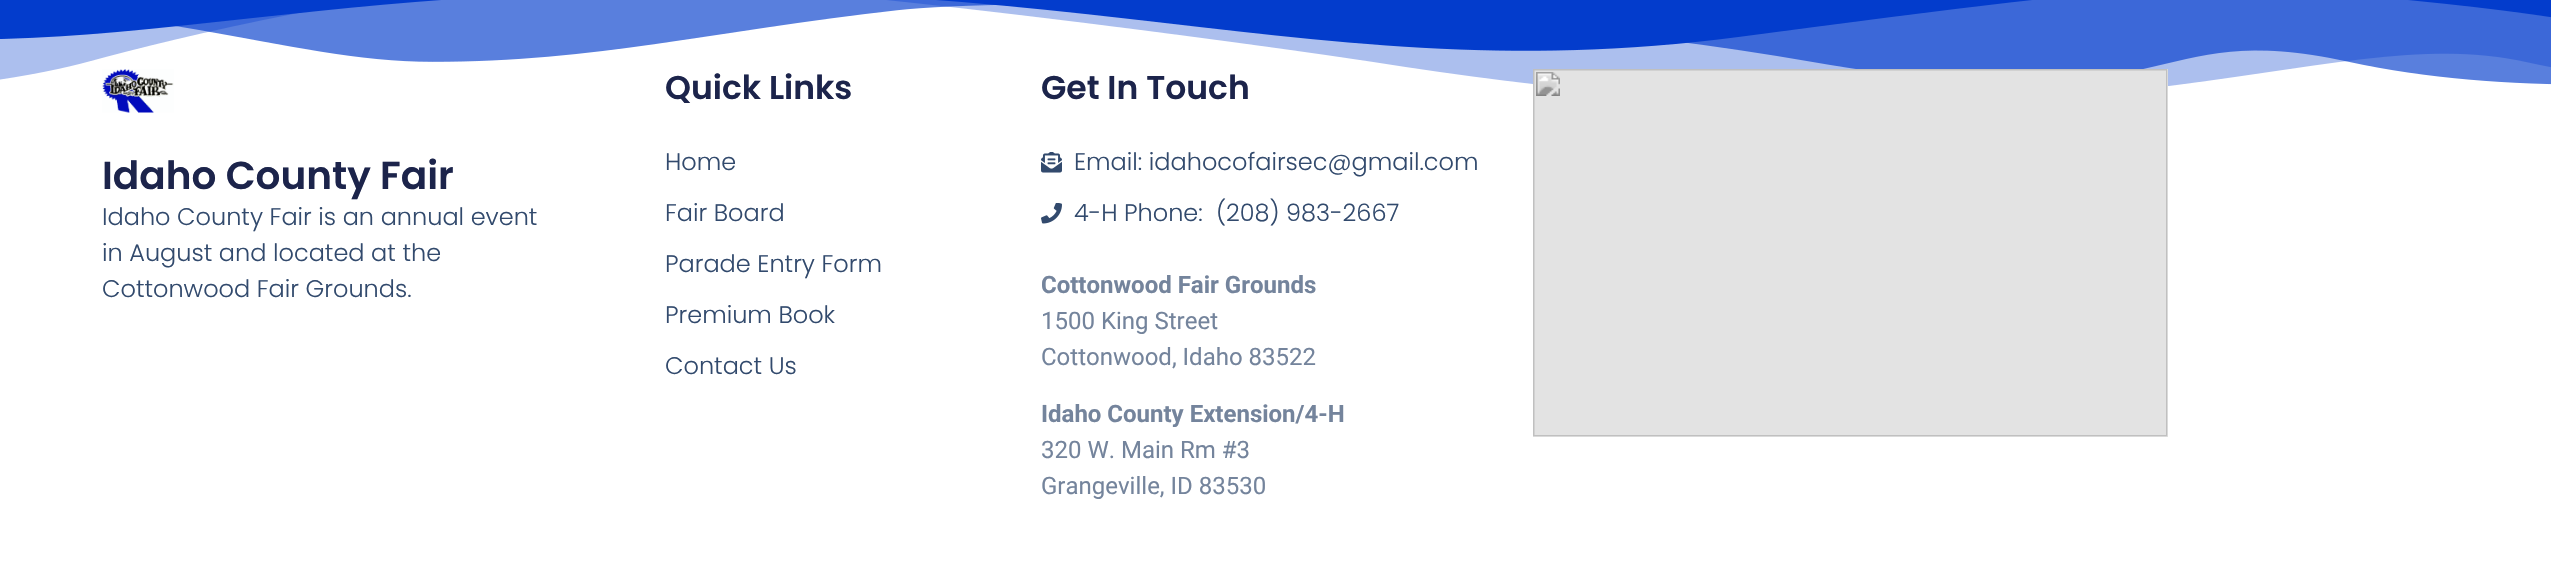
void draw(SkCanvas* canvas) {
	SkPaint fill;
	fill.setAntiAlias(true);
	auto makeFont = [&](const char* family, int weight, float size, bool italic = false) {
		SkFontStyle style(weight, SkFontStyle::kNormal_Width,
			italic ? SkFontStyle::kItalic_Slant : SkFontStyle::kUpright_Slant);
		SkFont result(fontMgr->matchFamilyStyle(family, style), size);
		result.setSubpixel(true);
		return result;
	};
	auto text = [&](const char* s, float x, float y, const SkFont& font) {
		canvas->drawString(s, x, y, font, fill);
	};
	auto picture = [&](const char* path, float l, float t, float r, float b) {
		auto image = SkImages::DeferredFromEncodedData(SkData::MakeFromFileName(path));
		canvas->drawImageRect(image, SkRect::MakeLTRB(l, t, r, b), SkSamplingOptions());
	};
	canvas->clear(0xFFFFFFFF);
	picture("image0.png", 0, 0, 2551, 86);
	picture("image1.png", 102, 69, 174, 113);
	picture("image2.png", 1041, 152, 1062, 173);
	picture("image3.png", 1041, 203, 1062, 224);
	picture("image4.png", 1533, 69, 2168, 437);
	auto font1 = makeFont("Poppins", 600, 39);
	fill.setColor(0xFF1C244B);
	text("Idaho County Fair", 102, 189, font1);
	auto font2 = makeFont("Poppins", 300, 24);
	fill.setColor(0xFF324A6D);
	text("Idaho County Fair is an annual event", 102, 225, font2);
	text("in August and located at the", 102, 261, font2);
	text("Cottonwood Fair Grounds.", 102, 297, font2);
	auto font3 = makeFont("Poppins", 600, 33);
	fill.setColor(0xFF1C244B);
	text("Quick Links", 665, 99, font3);
	fill.setColor(0xFF324A6D);
	text("Home", 665, 170, font2);
	text("Fair Board", 665, 221, font2);
	text("Parade Entry Form", 665, 272, font2);
	text("Premium Book", 665, 323, font2);
	text("Contact Us", 665, 374, font2);
	fill.setColor(0xFF1C244B);
	text("Get In Touch", 1041, 99, font3);
	fill.setColor(0xFF324A6D);
	text("Email: idahocofairsec@gmail.com", 1074, 170, font2);
	text("4-H Phone:  (208) 983-2667", 1074, 221, font2);
	auto font4 = makeFont("Roboto", 700, 24);
	fill.setColor(0xFF74849C);
	text("Cottonwood Fair Grounds", 1041, 293, font4);
	auto font5 = makeFont("Roboto", 400, 24);
	text("1500 King Street", 1041, 329, font5);
	text("Cottonwood, Idaho 83522", 1041, 365, font5);
	text("Idaho County Extension/4-H", 1041, 422, font4);
	text("320 W. Main Rm #3", 1041, 458, font5);
	text("Grangeville, ID 83530", 1041, 494, font5);
}
